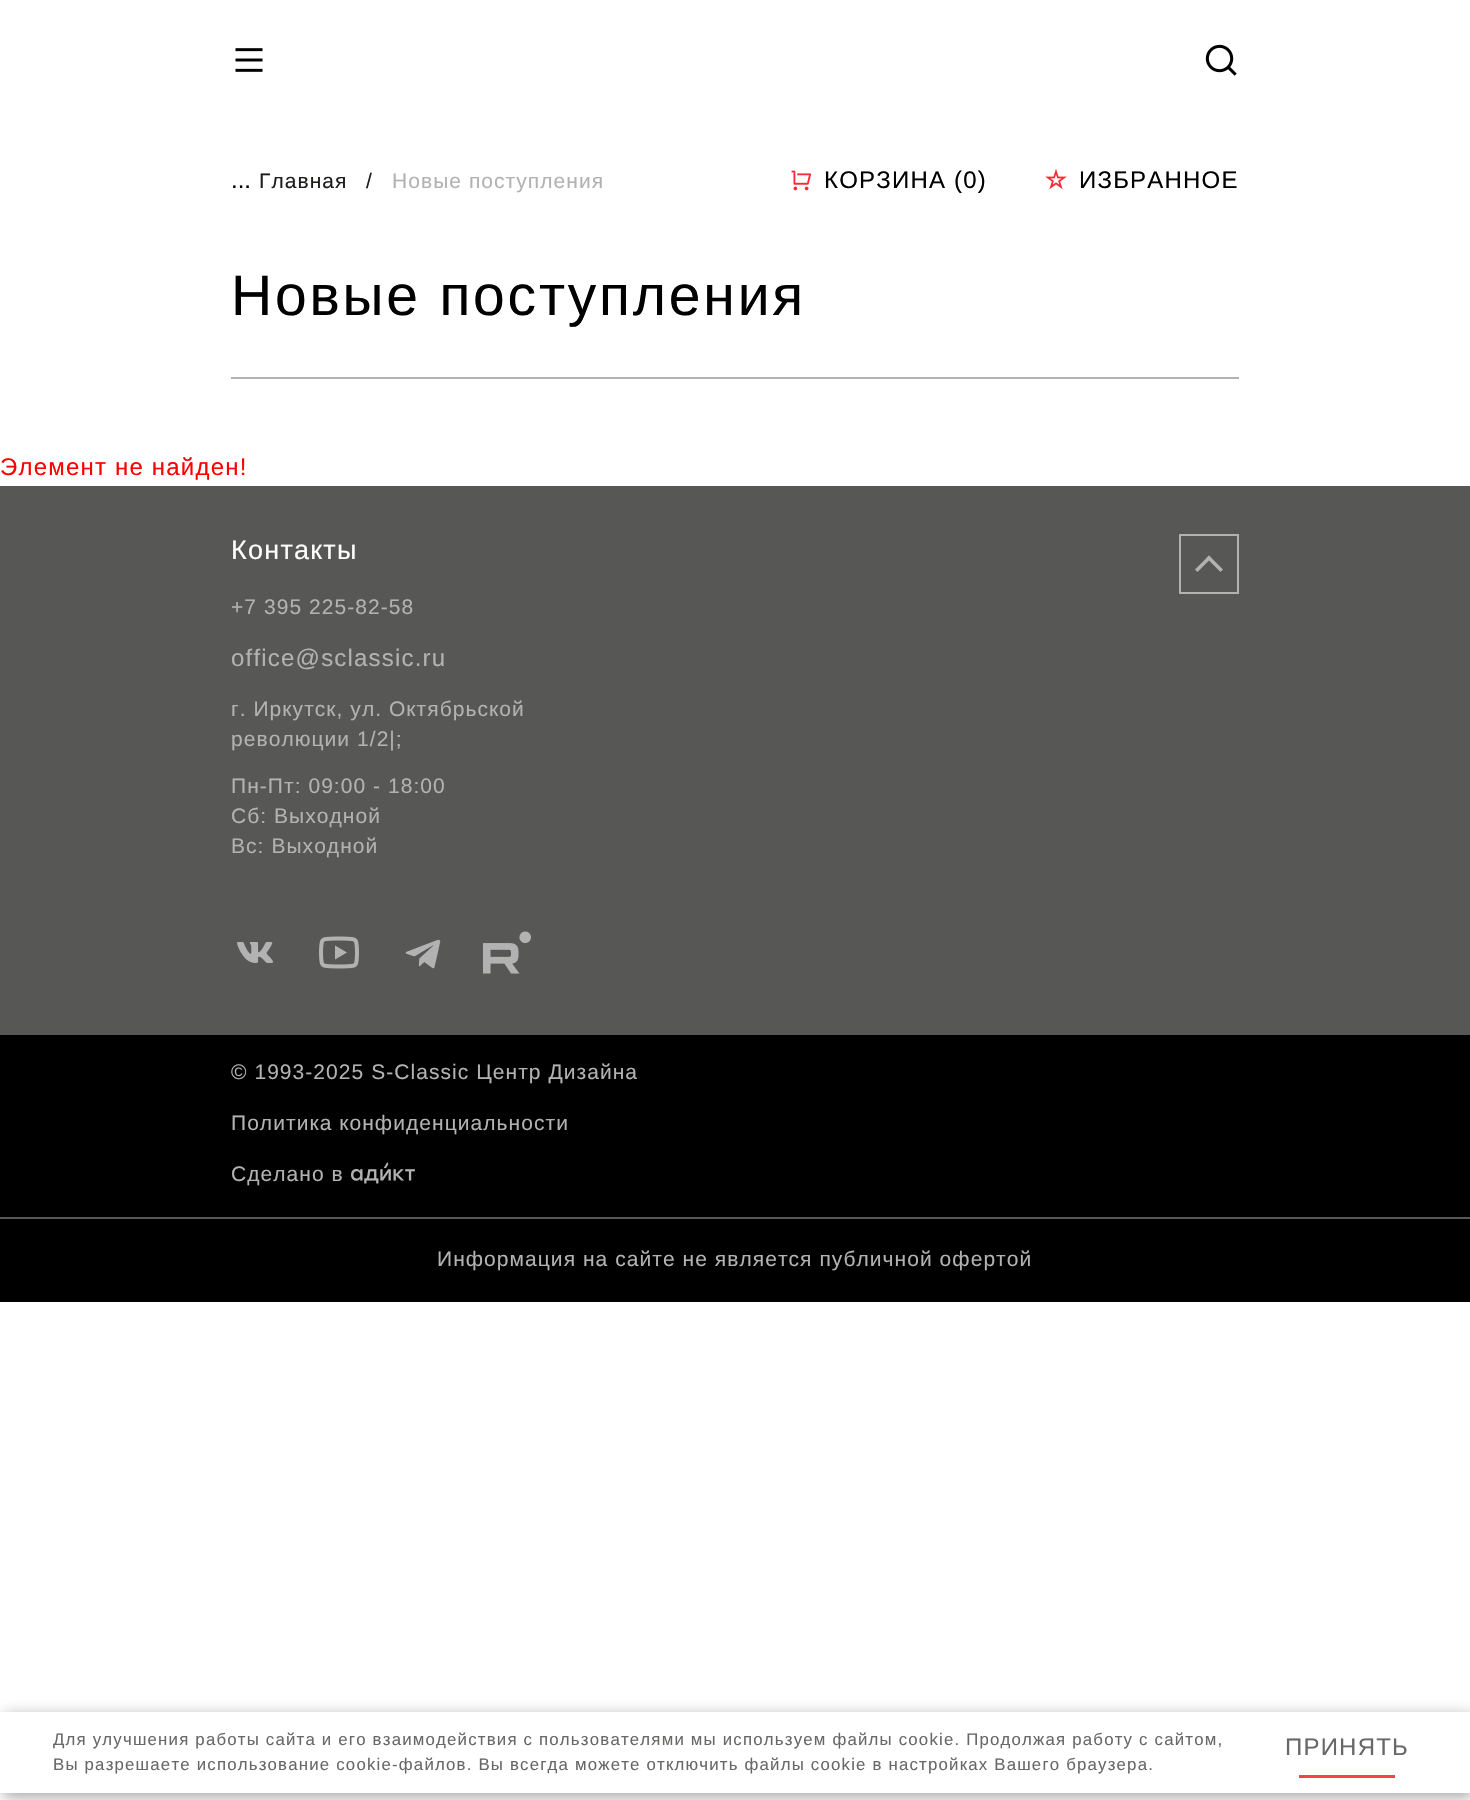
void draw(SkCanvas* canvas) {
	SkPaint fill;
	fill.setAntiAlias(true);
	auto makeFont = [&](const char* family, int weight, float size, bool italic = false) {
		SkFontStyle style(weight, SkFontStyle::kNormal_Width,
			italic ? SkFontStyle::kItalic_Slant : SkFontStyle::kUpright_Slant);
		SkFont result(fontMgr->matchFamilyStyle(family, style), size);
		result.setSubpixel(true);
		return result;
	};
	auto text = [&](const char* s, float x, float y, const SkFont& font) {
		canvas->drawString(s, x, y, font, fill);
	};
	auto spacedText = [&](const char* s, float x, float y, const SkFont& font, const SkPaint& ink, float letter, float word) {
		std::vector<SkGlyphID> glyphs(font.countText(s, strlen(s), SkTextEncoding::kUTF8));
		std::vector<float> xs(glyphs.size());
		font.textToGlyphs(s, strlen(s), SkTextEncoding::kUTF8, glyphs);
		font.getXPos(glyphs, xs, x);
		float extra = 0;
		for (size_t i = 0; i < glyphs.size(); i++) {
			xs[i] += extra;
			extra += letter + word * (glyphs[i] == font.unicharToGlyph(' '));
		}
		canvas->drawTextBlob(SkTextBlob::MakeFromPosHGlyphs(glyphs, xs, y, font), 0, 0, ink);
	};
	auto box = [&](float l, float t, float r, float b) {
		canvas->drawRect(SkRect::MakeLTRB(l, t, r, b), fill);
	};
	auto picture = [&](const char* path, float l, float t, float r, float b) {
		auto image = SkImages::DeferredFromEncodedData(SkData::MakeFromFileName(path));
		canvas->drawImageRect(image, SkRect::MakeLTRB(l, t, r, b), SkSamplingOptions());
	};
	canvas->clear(0xFFFFFFFF);
	picture("image0.png", 235, 48, 263, 72);
	picture("image1.png", 1205, 44, 1237, 76);
	fill.setColor(0xFFB2B2B2);
	box(231, 377, 1239, 379);
	picture("image2.png", 791, 170, 812, 191);
	picture("image3.png", 1045, 169, 1067, 190);
	fill.setColor(0xFF575756);
	box(0, 486, 1470, 1035);
	picture("image4.png", 237, 942, 273, 963);
	picture("image5.png", 319, 936, 359, 969);
	picture("image6.png", 405, 939, 441, 969);
	picture("image7.png", 483, 931, 531, 974);
	fill.setStyle(SkPaint::kStroke_Style);
	fill.setStrokeWidth(2);
	fill.setColor(0xFFB2B2B2);
	canvas->drawRect(SkRect::MakeLTRB(1180, 535, 1238, 593), fill);
	fill.setStyle(SkPaint::kFill_Style);
	canvas->drawPath(SkPathBuilder().moveTo(1195, 569.5f).lineTo(1209, 555.5f).lineTo(1211.5f, 558).lineTo(1197.5f, 572).close().detach(), fill);
	canvas->drawPath(SkPathBuilder().moveTo(1209, 555.5f).lineTo(1223, 569.5f).lineTo(1220.5f, 572).lineTo(1206.5f, 558).close().detach(), fill);
	fill.setColor(0xFF000000);
	box(0, 1035, 1470, 1302);
	picture("image8.png", 351, 1162, 415, 1184);
	fill.setColor(0xFF575756);
	box(0, 1217, 1470, 1219);
	fill.setColor(0x661A1A1A);
	fill.setMaskFilter(SkMaskFilter::MakeBlur(kNormal_SkBlurStyle, 7.5f));
	canvas->drawRect(SkRect::MakeLTRB(3, 1716, 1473, 1797), fill);
	fill.setMaskFilter(nullptr);
	fill.setColor(0xFFFFFFFF);
	box(0, 1712, 1470, 1793);
	fill.setColor(0xFFF8414C);
	box(1299, 1775, 1395, 1778);
	auto font1 = makeFont("Liberation Sans", 400, 24);
	fill.setColor(0xFF000000);
	text("...", 231, 188, font1);
	auto font2 = makeFont("Liberation Sans", 400, 21);
	fill.setColor(0xFF1D1D1B);
	spacedText("Главная", 259, 188, font2, fill, 1.05f, 0);
	spacedText("/", 366, 188, font2, fill, 1.05f, 0);
	fill.setColor(0xFFB2B2B2);
	spacedText("Новые поступления", 392, 188, font2, fill, 1.05f, 0);
	fill.setColor(0xFF000000);
	spacedText("КОРЗИНА (0)", 824, 188, font1, fill, 1.2f, 0);
	spacedText("ИЗБРАННОЕ", 1079, 188, font1, fill, 1.2f, 0);
	auto font3 = makeFont("Liberation Sans", 400, 57);
	spacedText("Новые поступления", 231, 315, font3, fill, 2.8f, 0);
	fill.setColor(0xFFFF0000);
	spacedText("Элемент не найден!", 0, 475, font1, fill, 1.2f, 0);
	auto font4 = makeFont("Liberation Sans", 400, 27);
	fill.setColor(0xFFFFFFFF);
	spacedText("Контакты", 231, 559, font4, fill, 1.25f, 0);
	fill.setColor(0xFFB2B2B2);
	spacedText("+7 395 225-82-58", 231, 614, font2, fill, 1.05f, 0);
	spacedText("office@sclassic.ru", 231, 666, font1, fill, 1.2f, 0);
	spacedText("г. Иркутск, ул. Октябрьской", 231, 716, font2, fill, 1.05f, 0);
	spacedText("революции 1/2|;", 231, 746, font2, fill, 1.05f, 0);
	spacedText("Пн-Пт: 09:00 - 18:00", 231, 793, font2, fill, 1.05f, 0);
	spacedText("Сб: Выходной", 231, 823, font2, fill, 1.05f, 0);
	spacedText("Вс: Выходной", 231, 853, font2, fill, 1.05f, 0);
	spacedText("© 1993-2025 S-Classic Центр Дизайна", 231, 1079, font2, fill, 1.05f, 0);
	spacedText("Политика конфиденциальности", 231, 1130, font2, fill, 1.05f, 0);
	spacedText("Сделано в", 231, 1181, font2, fill, 1.05f, 0);
	spacedText("Информация на сайте не является публичной офертой", 437, 1266, font2, fill, 1.05f, 0);
	auto font5 = makeFont("Liberation Sans", 400, 16.8f);
	fill.setColor(0xFF686867);
	spacedText("Для улучшения работы сайта и его взаимодействия с пользователями мы используем файлы cookie. Продолжая работу с сайтом,", 53, 1745, font5, fill, 1.2f, 0);
	spacedText("Вы разрешаете использование cookie-файлов. Вы всегда можете отключить файлы cookie в настройках Вашего браузера.", 53, 1770, font5, fill, 1.2f, 0);
	spacedText("ПРИНЯТЬ", 1285, 1755, font1, fill, 1.2f, 0);
}
